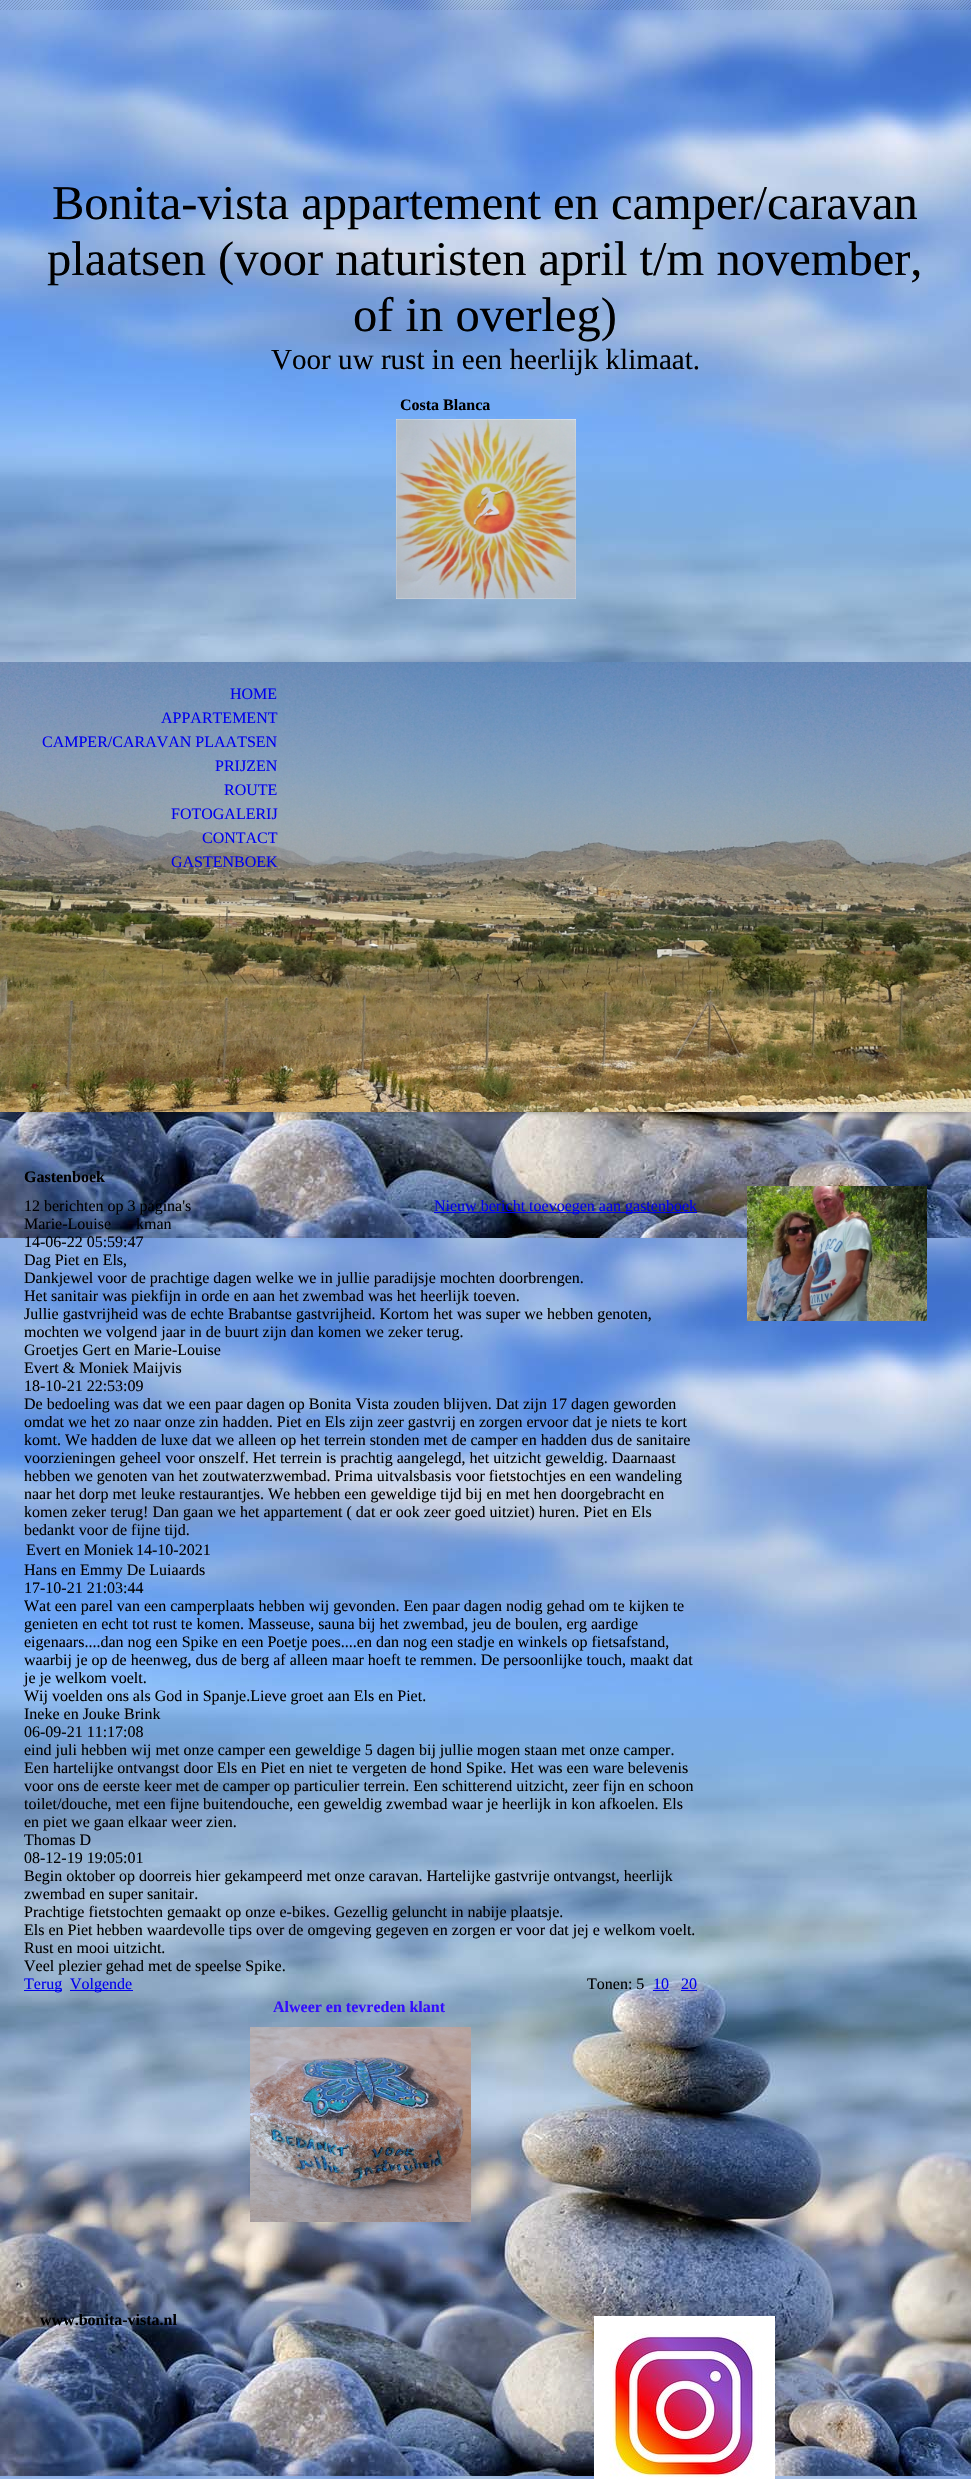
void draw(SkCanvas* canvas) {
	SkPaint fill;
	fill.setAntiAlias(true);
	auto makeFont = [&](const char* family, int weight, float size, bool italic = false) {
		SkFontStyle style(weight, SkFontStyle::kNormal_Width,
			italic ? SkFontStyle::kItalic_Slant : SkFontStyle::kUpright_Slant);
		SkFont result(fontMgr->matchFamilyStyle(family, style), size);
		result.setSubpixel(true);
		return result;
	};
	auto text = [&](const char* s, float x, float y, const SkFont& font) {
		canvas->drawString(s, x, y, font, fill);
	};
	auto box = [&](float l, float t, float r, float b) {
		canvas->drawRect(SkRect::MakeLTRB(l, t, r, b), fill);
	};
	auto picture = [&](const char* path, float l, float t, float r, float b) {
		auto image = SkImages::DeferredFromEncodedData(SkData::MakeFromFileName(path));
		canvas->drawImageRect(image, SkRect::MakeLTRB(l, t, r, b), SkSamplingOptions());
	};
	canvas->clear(0xFFFFFFFF);
	picture("image0.png", 0, 0, 971, 2479);
	picture("image1.png", 0, 0, 971, 10);
	picture("image2.png", 396, 419, 576, 599);
	fill.setColor(0x66000000);
	fill.setMaskFilter(SkMaskFilter::MakeBlur(kNormal_SkBlurStyle, 2.5f));
	canvas->drawRect(SkRect::MakeLTRB(5, 672, 966, 1112), fill);
	fill.setMaskFilter(nullptr);
	picture("image3.png", 0, 662, 971, 1112);
	fill.setColor(0xFF0000EE);
	box(434, 1212, 697, 1213);
	box(24, 1990, 62, 1991);
	box(70, 1990, 133, 1991);
	box(653, 1990, 669, 1991);
	box(681, 1990, 697, 1991);
	picture("image4.png", 250, 2027, 471, 2222);
	picture("image5.png", 747, 1186, 927, 1321);
	picture("image6.png", 594, 2316, 775, 2479);
	auto font1 = makeFont("Liberation Serif", 400, 48.5f);
	fill.setColor(0xFF000000);
	text("Bonita-vista appartement en camper/caravan", 52, 219, font1);
	text("plaatsen (voor naturisten april t/m november,", 47, 275, font1);
	text("of in overleg)", 353, 331, font1);
	auto font2 = makeFont("Liberation Serif", 400, 29.1f);
	text("Voor uw rust in een heerlijk klimaat.", 271, 369, font2);
	auto font3 = makeFont("Liberation Serif", 700, 16);
	text("Costa Blanca", 400, 410, font3);
	auto font4 = makeFont("Liberation Serif", 400, 16);
	fill.setColor(0xFF0000EE);
	text("HOME", 230, 699, font4);
	text("APPARTEMENT", 161, 723, font4);
	text("CAMPER/CARAVAN PLAATSEN", 42, 747, font4);
	text("PRIJZEN", 215, 771, font4);
	text("ROUTE", 224, 795, font4);
	text("FOTOGALERIJ", 171, 819, font4);
	text("CONTACT", 202, 843, font4);
	text("GASTENBOEK", 171, 867, font4);
	fill.setColor(0xFF000000);
	text("Gastenboek", 24, 1182, font3);
	text("12 berichten op 3 pagina's", 24, 1211, font4);
	fill.setColor(0xFF0000EE);
	text("Nieuw bericht toevoegen aan gastenboek", 434, 1211, font4);
	fill.setColor(0xFF000000);
	text("Marie-Louise", 24, 1229, font4);
	text("kman", 136, 1229, font4);
	text("14-06-22 05:59:47", 24, 1247, font4);
	text("Dag Piet en Els,", 24, 1265, font4);
	text("Dankjewel voor de prachtige dagen welke we in jullie paradijsje mochten doorbrengen.", 24, 1283, font4);
	text("Het sanitair was piekfijn in orde en aan het zwembad was het heerlijk toeven.", 24, 1301, font4);
	text("Jullie gastvrijheid was de echte Brabantse gastvrijheid. Kortom het was super we hebben genoten,", 24, 1319, font4);
	text("mochten we volgend jaar in de buurt zijn dan komen we zeker terug.", 24, 1337, font4);
	text("Groetjes Gert en Marie-Louise", 24, 1355, font4);
	text("Evert & Moniek Maijvis", 24, 1373, font4);
	text("18-10-21 22:53:09", 24, 1391, font4);
	text("De bedoeling was dat we een paar dagen op Bonita Vista zouden blijven. Dat zijn 17 dagen geworden", 24, 1409, font4);
	text("omdat we het zo naar onze zin hadden. Piet en Els zijn zeer gastvrij en zorgen ervoor dat je niets te kort", 24, 1427, font4);
	text("komt. We hadden de luxe dat we alleen op het terrein stonden met de camper en hadden dus de sanitaire", 24, 1445, font4);
	text("voorzieningen geheel voor onszelf. Het terrein is prachtig aangelegd, het uitzicht geweldig. Daarnaast", 24, 1463, font4);
	text("hebben we genoten van het zoutwaterzwembad. Prima uitvalsbasis voor fietstochtjes en een wandeling", 24, 1481, font4);
	text("naar het dorp met leuke restaurantjes. We hebben een geweldige tijd bij en met hen doorgebracht en", 24, 1499, font4);
	text("komen zeker terug! Dan gaan we het appartement ( dat er ook zeer goed uitziet) huren. Piet en Els", 24, 1517, font4);
	text("bedankt voor de fijne tijd.", 24, 1535, font4);
	text("Evert en Moniek", 26, 1555, font4);
	text("14-10-2021", 136, 1555, font4);
	text("Hans en Emmy De Luiaards", 24, 1575, font4);
	text("17-10-21 21:03:44", 24, 1593, font4);
	text("Wat een parel van een camperplaats hebben wij gevonden. Een paar dagen nodig gehad om te kijken te", 24, 1611, font4);
	text("genieten en echt tot rust te komen. Masseuse, sauna bij het zwembad, jeu de boulen, erg aardige", 24, 1629, font4);
	text("eigenaars....dan nog een Spike en een Poetje poes....en dan nog een stadje en winkels op fietsafstand,", 24, 1647, font4);
	text("waarbij je op de heenweg, dus de berg af alleen maar hoeft te remmen. De persoonlijke touch, maakt dat", 24, 1665, font4);
	text("je je welkom voelt.", 24, 1683, font4);
	text("Wij voelden ons als God in Spanje.Lieve groet aan Els en Piet.", 24, 1701, font4);
	text("Ineke en Jouke Brink", 24, 1719, font4);
	text("06-09-21 11:17:08", 24, 1737, font4);
	text("eind juli hebben wij met onze camper een geweldige 5 dagen bij jullie mogen staan met onze camper.", 24, 1755, font4);
	text("Een hartelijke ontvangst door Els en Piet en niet te vergeten de hond Spike. Het was een ware belevenis", 24, 1773, font4);
	text("voor ons de eerste keer met de camper op particulier terrein. Een schitterend uitzicht, zeer fijn en schoon", 24, 1791, font4);
	text("toilet/douche, met een fijne buitendouche, een geweldig zwembad waar je heerlijk in kon afkoelen. Els", 24, 1809, font4);
	text("en piet we gaan elkaar weer zien.", 24, 1827, font4);
	text("Thomas D", 24, 1845, font4);
	text("08-12-19 19:05:01", 24, 1863, font4);
	text("Begin oktober op doorreis hier gekampeerd met onze caravan. Hartelijke gastvrije ontvangst, heerlijk", 24, 1881, font4);
	text("zwembad en super sanitair.", 24, 1899, font4);
	text("Prachtige fietstochten gemaakt op onze e-bikes. Gezellig geluncht in nabije plaatsje.", 24, 1917, font4);
	text("Els en Piet hebben waardevolle tips over de omgeving gegeven en zorgen er voor dat jej e welkom voelt.", 24, 1935, font4);
	text("Rust en mooi uitzicht.", 24, 1953, font4);
	text("Veel plezier gehad met de speelse Spike.", 24, 1971, font4);
	fill.setColor(0xFF0000EE);
	text("Terug", 24, 1989, font4);
	text("Volgende", 70, 1989, font4);
	fill.setColor(0xFF000000);
	text("Tonen: 5", 587, 1989, font4);
	fill.setColor(0xFF0000EE);
	text("10", 653, 1989, font4);
	text("20", 681, 1989, font4);
	fill.setColor(0xFF330DFF);
	text("Alweer en tevreden klant", 273, 2012, font3);
	fill.setColor(0xFF000000);
	text("www.bonita-vista.nl", 40, 2325, font3);
}
